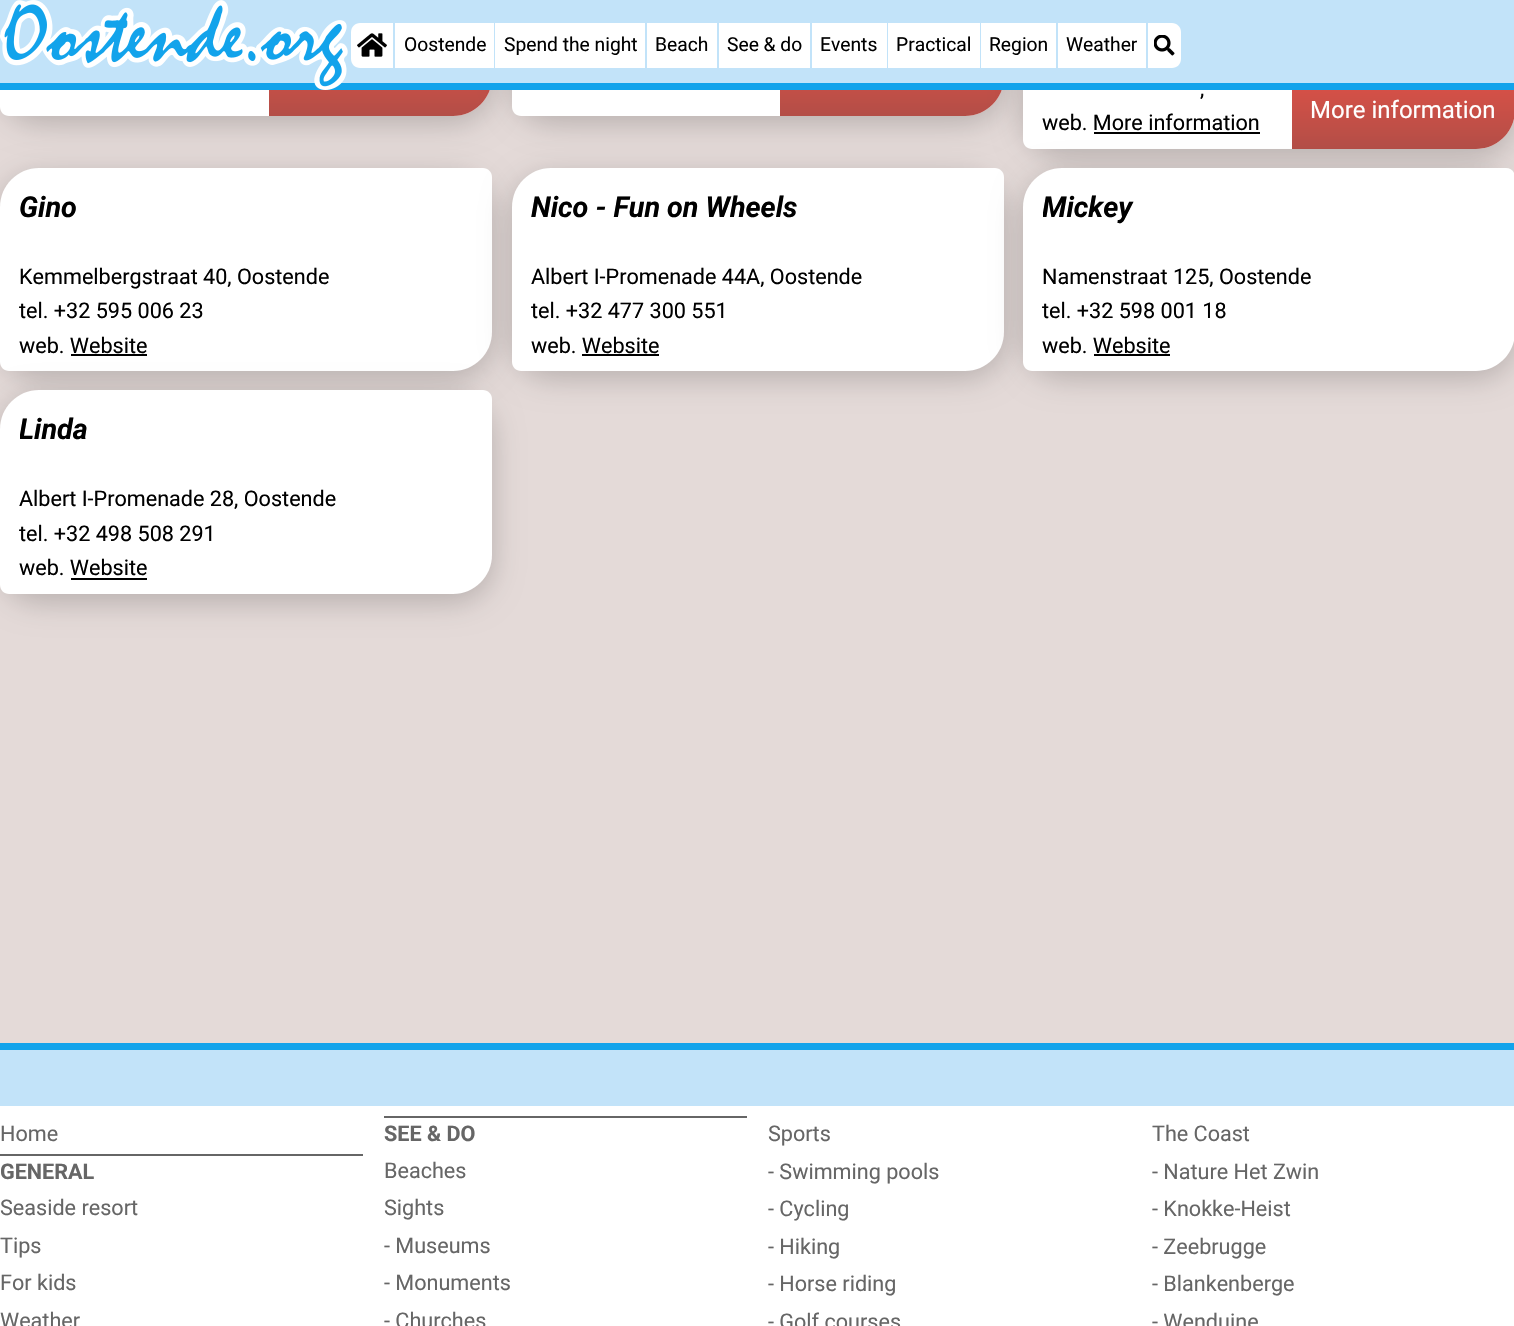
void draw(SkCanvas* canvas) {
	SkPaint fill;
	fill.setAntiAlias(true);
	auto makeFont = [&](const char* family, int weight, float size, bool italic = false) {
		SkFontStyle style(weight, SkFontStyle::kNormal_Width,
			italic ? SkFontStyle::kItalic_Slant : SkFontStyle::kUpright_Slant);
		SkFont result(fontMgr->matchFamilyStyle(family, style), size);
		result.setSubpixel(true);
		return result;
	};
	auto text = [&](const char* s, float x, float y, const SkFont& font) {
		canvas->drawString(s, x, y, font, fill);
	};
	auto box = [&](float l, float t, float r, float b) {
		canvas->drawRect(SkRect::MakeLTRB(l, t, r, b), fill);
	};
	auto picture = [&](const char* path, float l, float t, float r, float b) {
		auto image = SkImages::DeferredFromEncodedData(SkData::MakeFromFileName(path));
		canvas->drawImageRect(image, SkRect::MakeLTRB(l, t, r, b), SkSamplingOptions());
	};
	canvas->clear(0xFFE4DAD8);
	fill.setColor(0x33000000);
	fill.setMaskFilter(SkMaskFilter::MakeBlur(kNormal_SkBlurStyle, 15));
	canvas->drawRoundRect(SkRect::MakeLTRB(0, -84, 492, 123), 39, 39, fill);
	fill.setMaskFilter(nullptr);
	fill.setColor(0xFFFFFFFF);
	canvas->drawPath(SkPathBuilder().moveTo(39, -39).lineTo(483, -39).cubicTo(488, -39, 492, -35, 492, -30).lineTo(492, 77).cubicTo(492, 98.5f, 474.5f, 116, 453, 116).lineTo(9, 116).cubicTo(4, 116, 0, 112, 0, 107).lineTo(0, 0).cubicTo(0, -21.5f, 17.5f, -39, 39, -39).close().detach(), fill);
	{
		const SkColor colors[] = {0xFFDE5147, 0xFFB34E47};
		const float stops[] = {0, 1};
		const SkPoint ends[] = {{380, 39}, {380, 116}};
		fill.setShader(SkGradientShader::MakeLinear(ends, colors, stops, 2, SkTileMode::kClamp));
		fill.setAlpha(255);
	}
	canvas->drawPath(SkPathBuilder().moveTo(278, 39).lineTo(492, 39).lineTo(492, 77).cubicTo(492, 98.5f, 474.5f, 116, 453, 116).lineTo(269, 116).lineTo(269, 48).cubicTo(269, 43, 273, 39, 278, 39).close().detach(), fill);
	fill.setShader(nullptr);
	fill.setColor(0x33000000);
	fill.setMaskFilter(SkMaskFilter::MakeBlur(kNormal_SkBlurStyle, 15));
	canvas->drawRoundRect(SkRect::MakeLTRB(512, -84, 1004, 123), 39, 39, fill);
	fill.setMaskFilter(nullptr);
	fill.setColor(0xFFFFFFFF);
	canvas->drawPath(SkPathBuilder().moveTo(551, -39).lineTo(995, -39).cubicTo(1000, -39, 1004, -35, 1004, -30).lineTo(1004, 77).cubicTo(1004, 98.5f, 986.5f, 116, 965, 116).lineTo(521, 116).cubicTo(516, 116, 512, 112, 512, 107).lineTo(512, 0).cubicTo(512, -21.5f, 529.5f, -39, 551, -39).close().detach(), fill);
	{
		const SkColor colors[] = {0xFFDE5147, 0xFFB34E47};
		const float stops[] = {0, 1};
		const SkPoint ends[] = {{892, 39}, {892, 116}};
		fill.setShader(SkGradientShader::MakeLinear(ends, colors, stops, 2, SkTileMode::kClamp));
		fill.setAlpha(255);
	}
	canvas->drawPath(SkPathBuilder().moveTo(789, 39).lineTo(1004, 39).lineTo(1004, 77).cubicTo(1004, 98.5f, 986.5f, 116, 965, 116).lineTo(780, 116).lineTo(780, 48).cubicTo(780, 43, 784, 39, 789, 39).close().detach(), fill);
	fill.setShader(nullptr);
	fill.setColor(0x33000000);
	fill.setMaskFilter(SkMaskFilter::MakeBlur(kNormal_SkBlurStyle, 15));
	canvas->drawRoundRect(SkRect::MakeLTRB(1023, -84, 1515, 156), 39, 39, fill);
	fill.setMaskFilter(nullptr);
	fill.setColor(0xFFFFFFFF);
	canvas->drawPath(SkPathBuilder().moveTo(1062, -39).lineTo(1506, -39).cubicTo(1511, -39, 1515, -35, 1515, -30).lineTo(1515, 110).cubicTo(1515, 131.5f, 1497.5f, 149, 1476, 149).lineTo(1032, 149).cubicTo(1027, 149, 1023, 145, 1023, 140).lineTo(1023, 0).cubicTo(1023, -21.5f, 1040.5f, -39, 1062, -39).close().detach(), fill);
	{
		const SkColor colors[] = {0xFFDE5147, 0xFFB34E47};
		const float stops[] = {0, 1};
		const SkPoint ends[] = {{1403, 72}, {1403, 149}};
		fill.setShader(SkGradientShader::MakeLinear(ends, colors, stops, 2, SkTileMode::kClamp));
		fill.setAlpha(255);
	}
	canvas->drawPath(SkPathBuilder().moveTo(1301, 72).lineTo(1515, 72).lineTo(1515, 110).cubicTo(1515, 131.5f, 1497.5f, 149, 1476, 149).lineTo(1292, 149).lineTo(1292, 81).cubicTo(1292, 76, 1296, 72, 1301, 72).close().detach(), fill);
	fill.setShader(nullptr);
	fill.setColor(0xFFC2E3F9);
	box(0, 0, 1514, 83);
	fill.setColor(0xFF12A3EB);
	box(0, 83, 1514, 90);
	picture("image0.png", 0, 0, 348, 90);
	fill.setColor(0xFFFFFFFF);
	canvas->drawPath(SkPathBuilder().moveTo(360, 23).lineTo(393, 23).lineTo(393, 68).lineTo(360, 68).cubicTo(355, 68, 351, 64, 351, 59).lineTo(351, 32).cubicTo(351, 27, 355, 23, 360, 23).close().detach(), fill);
	picture("image1.png", 357, 33, 387, 57);
	box(395, 23, 494, 68);
	box(495, 23, 645, 68);
	box(647, 23, 717, 68);
	box(719, 23, 810, 68);
	box(812, 23, 887, 68);
	box(888, 23, 980, 68);
	box(981, 23, 1056, 68);
	box(1058, 23, 1146, 68);
	canvas->drawPath(SkPathBuilder().moveTo(1148, 23).lineTo(1172, 23).cubicTo(1177, 23, 1181, 27, 1181, 32).lineTo(1181, 59).cubicTo(1181, 64, 1177, 68, 1172, 68).lineTo(1148, 68).close().detach(), fill);
	picture("image2.png", 1154, 35, 1175, 56);
	fill.setColor(0xFF000000);
	box(1094, 132, 1260, 134);
	fill.setColor(0x33000000);
	fill.setMaskFilter(SkMaskFilter::MakeBlur(kNormal_SkBlurStyle, 15));
	canvas->drawRoundRect(SkRect::MakeLTRB(0, 176, 492, 378), 39, 39, fill);
	fill.setMaskFilter(nullptr);
	fill.setColor(0xFFFFFFFF);
	canvas->drawPath(SkPathBuilder().moveTo(39, 168).lineTo(483, 168).cubicTo(488, 168, 492, 172, 492, 177).lineTo(492, 332).cubicTo(492, 353.5f, 474.5f, 371, 453, 371).lineTo(9, 371).cubicTo(4, 371, 0, 367, 0, 362).lineTo(0, 207).cubicTo(0, 185.5f, 17.5f, 168, 39, 168).close().detach(), fill);
	fill.setColor(0xFF000000);
	box(71, 354, 147, 356);
	fill.setColor(0x33000000);
	fill.setMaskFilter(SkMaskFilter::MakeBlur(kNormal_SkBlurStyle, 15));
	canvas->drawRoundRect(SkRect::MakeLTRB(512, 176, 1004, 378), 39, 39, fill);
	fill.setMaskFilter(nullptr);
	fill.setColor(0xFFFFFFFF);
	canvas->drawPath(SkPathBuilder().moveTo(551, 168).lineTo(995, 168).cubicTo(1000, 168, 1004, 172, 1004, 177).lineTo(1004, 332).cubicTo(1004, 353.5f, 986.5f, 371, 965, 371).lineTo(521, 371).cubicTo(516, 371, 512, 367, 512, 362).lineTo(512, 207).cubicTo(512, 185.5f, 529.5f, 168, 551, 168).close().detach(), fill);
	fill.setColor(0xFF000000);
	box(582, 354, 659, 356);
	fill.setColor(0x33000000);
	fill.setMaskFilter(SkMaskFilter::MakeBlur(kNormal_SkBlurStyle, 15));
	canvas->drawRoundRect(SkRect::MakeLTRB(1023, 176, 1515, 378), 39, 39, fill);
	fill.setMaskFilter(nullptr);
	fill.setColor(0xFFFFFFFF);
	canvas->drawPath(SkPathBuilder().moveTo(1062, 168).lineTo(1506, 168).cubicTo(1511, 168, 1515, 172, 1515, 177).lineTo(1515, 332).cubicTo(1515, 353.5f, 1497.5f, 371, 1476, 371).lineTo(1032, 371).cubicTo(1027, 371, 1023, 367, 1023, 362).lineTo(1023, 207).cubicTo(1023, 185.5f, 1040.5f, 168, 1062, 168).close().detach(), fill);
	fill.setColor(0xFF000000);
	box(1094, 354, 1170, 356);
	fill.setColor(0x33000000);
	fill.setMaskFilter(SkMaskFilter::MakeBlur(kNormal_SkBlurStyle, 15));
	canvas->drawRoundRect(SkRect::MakeLTRB(0, 398, 492, 602), 39, 39, fill);
	fill.setMaskFilter(nullptr);
	fill.setColor(0xFFFFFFFF);
	canvas->drawPath(SkPathBuilder().moveTo(39, 390).lineTo(483, 390).cubicTo(488, 390, 492, 394, 492, 399).lineTo(492, 555).cubicTo(492, 576.5f, 474.5f, 594, 453, 594).lineTo(9, 594).cubicTo(4, 594, 0, 590, 0, 585).lineTo(0, 429).cubicTo(0, 407.5f, 17.5f, 390, 39, 390).close().detach(), fill);
	fill.setColor(0xFF000000);
	box(71, 578, 147, 580);
	fill.setColor(0xFFFFFFFF);
	box(0, 1106, 1514, 1326);
	fill.setColor(0xFFC2E3F9);
	box(0, 1050, 1514, 1106);
	fill.setColor(0xFF12A3EB);
	box(0, 1043, 1514, 1050);
	fill.setColor(0xFF666666);
	box(384, 1116, 747, 1118);
	box(0, 1154, 363, 1156);
	auto font1 = makeFont("Roboto", 400, 19.25f);
	fill.setColor(0xFF000000);
	text("Oostende", 404, 51, font1);
	text("Spend the night", 504, 51, font1);
	text("Beach", 655, 51, font1);
	text("See & do", 727, 51, font1);
	text("Events", 820, 51, font1);
	text("Practical", 896, 51, font1);
	text("Region", 989, 51, font1);
	text("Weather", 1066, 51, font1);
	auto font2 = makeFont("Roboto", 400, 21.6f);
	text(",", 1200, 96, font2);
	auto font3 = makeFont("Roboto", 400, 24);
	fill.setColor(0xFFFFFFFF);
	text("More information", 1310, 118, font3);
	fill.setColor(0xFF000000);
	text("web. More information", 1042, 130, font2);
	auto font4 = makeFont("Roboto", 700, 28.75f, true);
	text("Gino", 19, 217, font4);
	text("Kemmelbergstraat 40, Oostende", 19, 284, font2);
	text("tel. +32 595 006 23", 19, 318, font2);
	text("web. Website", 19, 353, font2);
	text("Nico - Fun on Wheels", 531, 217, font4);
	text("Albert I-Promenade 44A, Oostende", 531, 284, font2);
	text("tel. +32 477 300 551", 531, 318, font2);
	text("web. Website", 531, 353, font2);
	canvas->save();
	canvas->clipPath(SkPathBuilder().moveTo(1043, 186).lineTo(1487, 186).cubicTo(1492, 186, 1496, 190, 1496, 195).cubicTo(1496, 214.5f, 1480.5f, 230, 1461, 230).lineTo(1043, 230).close().detach(), true);
	text("Mickey", 1042, 217, font4);
	canvas->restore();
	text("Namenstraat 125, Oostende", 1042, 284, font2);
	text("tel. +32 598 001 18", 1042, 318, font2);
	text("web. Website", 1042, 353, font2);
	canvas->save();
	canvas->clipPath(SkPathBuilder().moveTo(20, 410).lineTo(464, 410).cubicTo(469, 410, 473, 414, 473, 419).cubicTo(473, 437.5f, 457.5f, 453, 439, 453).lineTo(20, 453).close().detach(), true);
	text("Linda", 19, 439, font4);
	canvas->restore();
	text("Albert I-Promenade 28, Oostende", 19, 506, font2);
	text("tel. +32 498 508 291", 19, 541, font2);
	text("web. Website", 19, 575, font2);
	fill.setColor(0xFF666666);
	text("Home", 0, 1141, font2);
	auto font5 = makeFont("Roboto", 700, 21.6f);
	text("SEE & DO", 384, 1141, font5);
	text("Beaches", 384, 1178, font2);
	text("Sights", 384, 1215, font2);
	text("- Museums", 384, 1253, font2);
	text("- Monuments", 384, 1290, font2);
	text("- Churches", 384, 1328, font2);
	text("Sports", 768, 1141, font2);
	text("- Swimming pools", 768, 1179, font2);
	text("- Cycling", 768, 1216, font2);
	text("- Hiking", 768, 1254, font2);
	text("- Horse riding", 768, 1291, font2);
	text("- Golf courses", 768, 1329, font2);
	text("The Coast", 1152, 1141, font2);
	text("- Nature Het Zwin", 1152, 1179, font2);
	text("- Knokke-Heist", 1152, 1216, font2);
	text("- Zeebrugge", 1152, 1254, font2);
	text("- Blankenberge", 1152, 1291, font2);
	text("- Wenduine", 1152, 1329, font2);
	text("GENERAL", 0, 1179, font5);
	text("Seaside resort", 0, 1215, font2);
	text("Tips", 0, 1253, font2);
	text("For kids", 0, 1290, font2);
	text("Weather", 0, 1328, font2);
}
